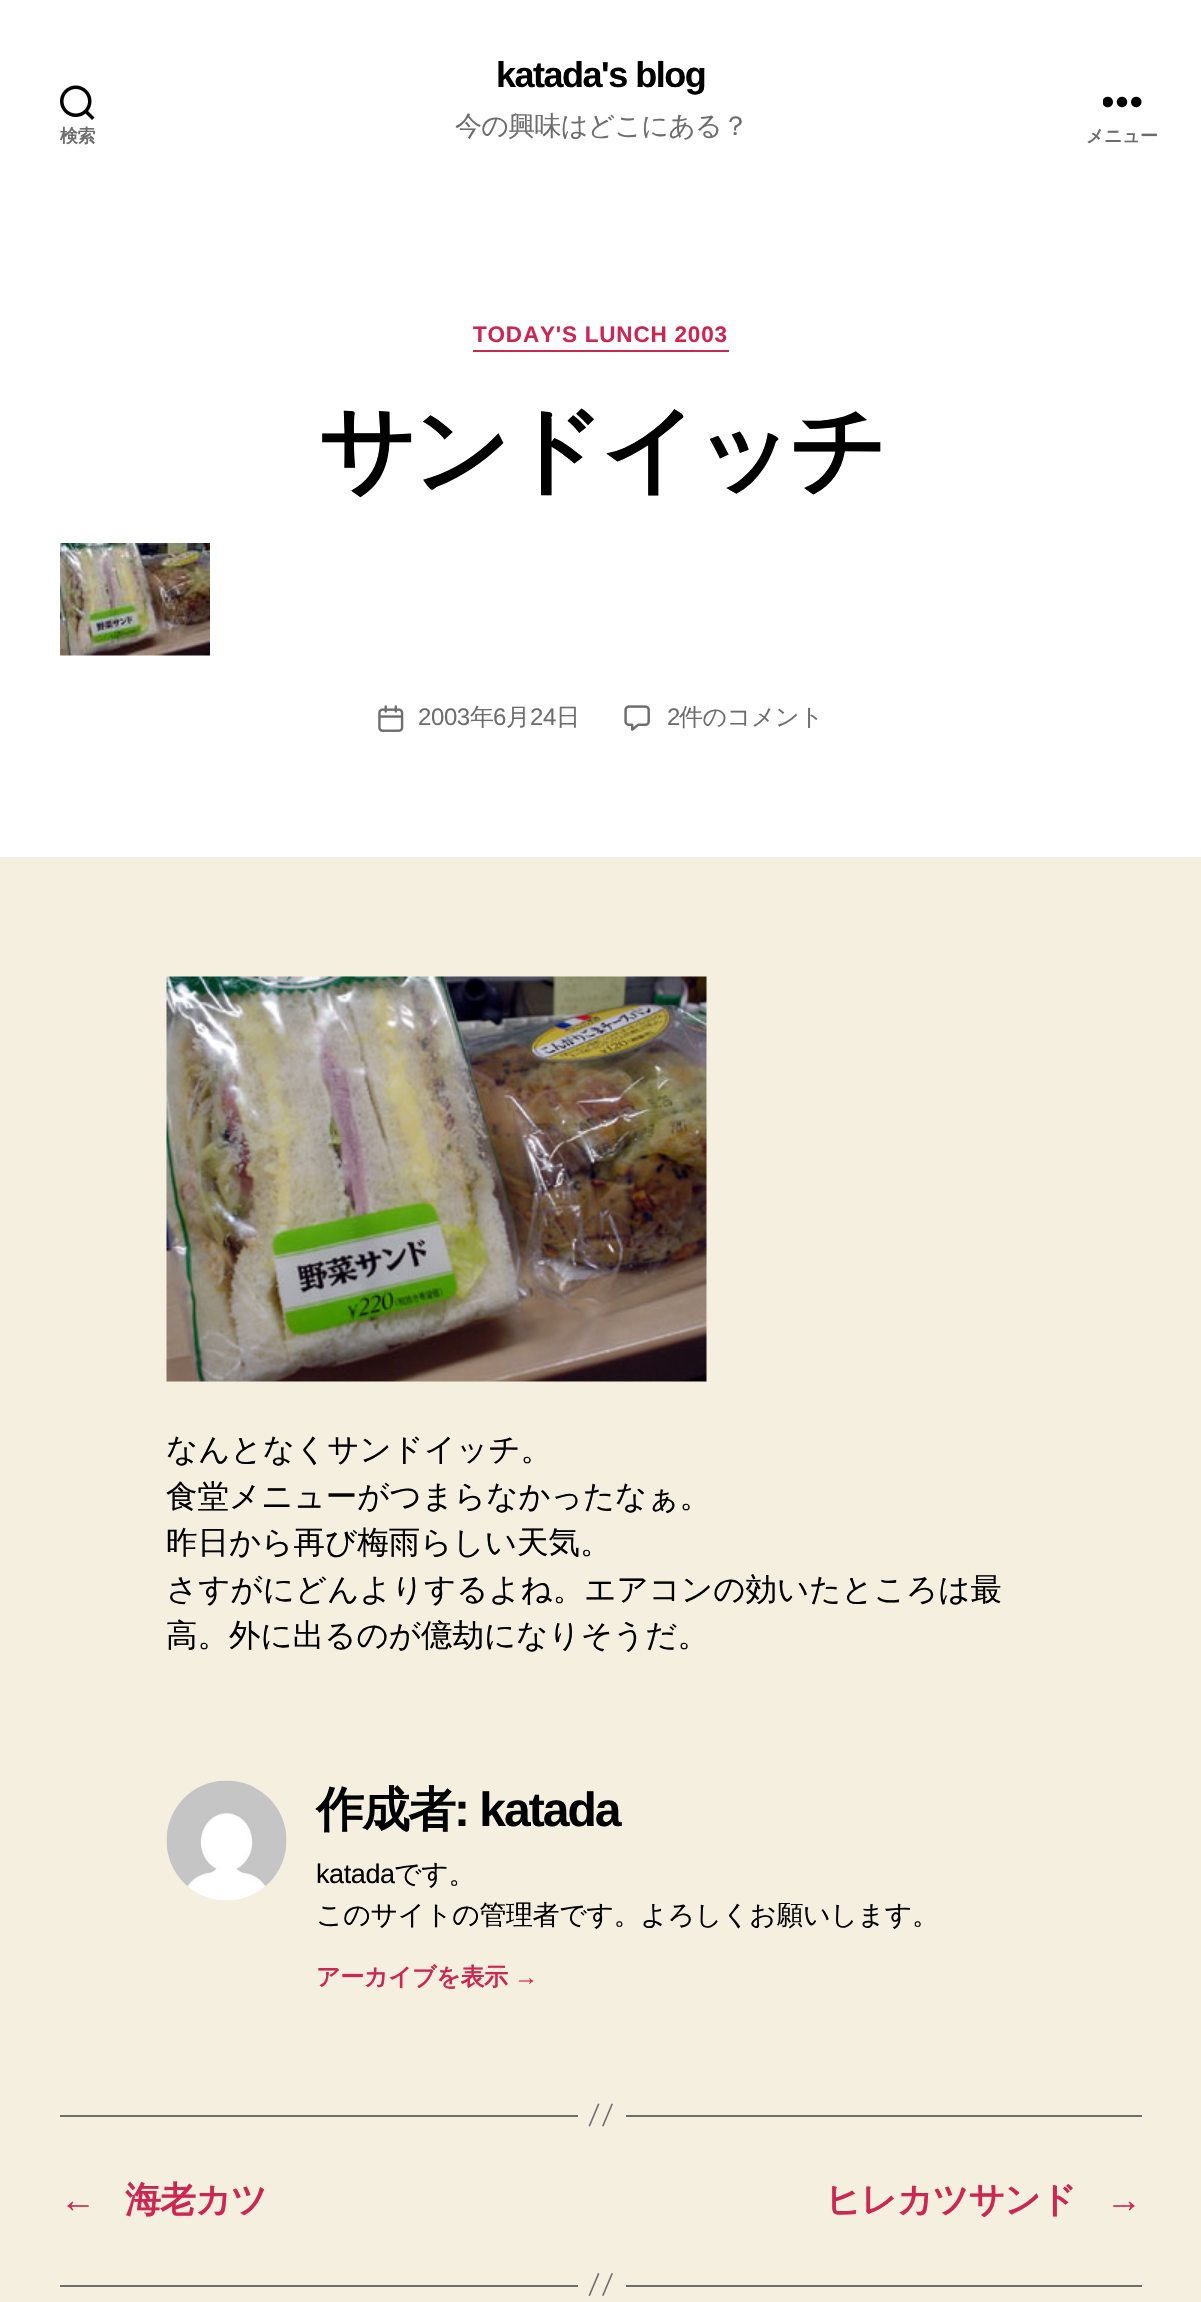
void draw(SkCanvas* canvas) {
	SkPaint fill;
	fill.setAntiAlias(true);
	auto makeFont = [&](const char* family, int weight, float size, bool italic = false) {
		SkFontStyle style(weight, SkFontStyle::kNormal_Width,
			italic ? SkFontStyle::kItalic_Slant : SkFontStyle::kUpright_Slant);
		SkFont result(fontMgr->matchFamilyStyle(family, style), size);
		result.setSubpixel(true);
		return result;
	};
	auto text = [&](const char* s, float x, float y, const SkFont& font) {
		canvas->drawString(s, x, y, font, fill);
	};
	auto spacedText = [&](const char* s, float x, float y, const SkFont& font, const SkPaint& ink, float letter, float word) {
		std::vector<SkGlyphID> glyphs(font.countText(s, strlen(s), SkTextEncoding::kUTF8));
		std::vector<float> xs(glyphs.size());
		font.textToGlyphs(s, strlen(s), SkTextEncoding::kUTF8, glyphs);
		font.getXPos(glyphs, xs, x);
		float extra = 0;
		for (size_t i = 0; i < glyphs.size(); i++) {
			xs[i] += extra;
			extra += letter + word * (glyphs[i] == font.unicharToGlyph(' '));
		}
		canvas->drawTextBlob(SkTextBlob::MakeFromPosHGlyphs(glyphs, xs, y, font), 0, 0, ink);
	};
	auto box = [&](float l, float t, float r, float b) {
		canvas->drawRect(SkRect::MakeLTRB(l, t, r, b), fill);
	};
	auto picture = [&](const char* path, float l, float t, float r, float b) {
		auto image = SkImages::DeferredFromEncodedData(SkData::MakeFromFileName(path));
		canvas->drawImageRect(image, SkRect::MakeLTRB(l, t, r, b), SkSamplingOptions());
	};
	canvas->clear(0xFFF5EFE0);
	fill.setColor(0xFFFFFFFF);
	box(0, 0, 1201, 857);
	picture("image0.png", 60, 85, 95, 120);
	picture("image1.png", 1103, 96, 1142, 108);
	fill.setColor(0xFFCD2653);
	box(473, 350, 729, 352);
	picture("image2.png", 60, 543, 210, 656);
	picture("image3.png", 378, 705, 404, 732);
	picture("image4.png", 624, 705, 650, 731);
	picture("image5.png", 166, 976, 707, 1382);
	picture("image6.png", 166, 1780, 287, 1901);
	fill.setColor(0xFF6D6D6D);
	box(626, 2115, 1142, 2117);
	box(60, 2115, 578, 2117);
	canvas->drawPath(SkPathBuilder().moveTo(598, 2103.5f).lineTo(599.5f, 2104).lineTo(590, 2126.5f).lineTo(588.5f, 2126).close().moveTo(611.5f, 2103.5f).lineTo(613, 2104).lineTo(603.5f, 2126.5f).lineTo(602, 2126).close().detach(), fill);
	box(626, 2285, 1142, 2287);
	box(60, 2285, 578, 2287);
	canvas->drawPath(SkPathBuilder().moveTo(598, 2273).lineTo(599.5f, 2273.5f).lineTo(590, 2296).lineTo(588.5f, 2295.5f).close().moveTo(611.5f, 2273).lineTo(613, 2273.5f).lineTo(603.5f, 2296).lineTo(602, 2295.5f).close().detach(), fill);
	auto font1 = makeFont("WenQuanYi Zen Hei", 700, 18);
	spacedText("検索", 60, 142, font1, fill, -0.4f, 0);
	auto font2 = makeFont("Liberation Sans", 700, 36);
	fill.setColor(0xFF000000);
	spacedText("katada's blog", 496, 87, font2, fill, -1.5f, 0);
	auto font3 = makeFont("WenQuanYi Zen Hei", 500, 27);
	fill.setColor(0xFF6D6D6D);
	spacedText("今の興味はどこにある？", 455, 135, font3, fill, -0.75f, 0);
	spacedText("メニュー", 1086, 142, font1, fill, -0.4f, 0);
	auto font4 = makeFont("Liberation Sans", 700, 22.5f);
	fill.setColor(0xFFCD2653);
	spacedText("TODAY'S LUNCH 2003", 473, 342, font4, fill, 0.8f, 0);
	auto font5 = makeFont("WenQuanYi Zen Hei", 700, 96);
	fill.setColor(0xFF000000);
	spacedText("サンドイッチ", 318, 483, font5, fill, -4, 0);
	auto font6 = makeFont("Liberation Sans", 400, 24);
	fill.setColor(0xFF6D6D6D);
	spacedText("2003", 418, 725, font6, fill, -0.4f, 0);
	auto font7 = makeFont("WenQuanYi Zen Hei", 500, 24);
	spacedText("年", 470, 725, font7, fill, -0.4f, 0);
	spacedText("6", 493, 725, font6, fill, -0.4f, 0);
	spacedText("月", 506, 725, font7, fill, -0.4f, 0);
	spacedText("24", 530, 725, font6, fill, -0.4f, 0);
	spacedText("日", 556, 725, font7, fill, -0.4f, 0);
	spacedText("2", 667, 725, font6, fill, -0.4f, 0);
	spacedText("件のコメント", 679, 725, font7, fill, -0.4f, 0);
	auto font8 = makeFont("WenQuanYi Zen Hei", 500, 31.5f);
	fill.setColor(0xFF000000);
	text("なんとなくサンドイッチ。", 166, 1460, font8);
	text("食堂メニューがつまらなかったなぁ。", 166, 1507, font8);
	text("昨日から再び梅雨らしい天気。", 166, 1553, font8);
	text("さすがにどんよりするよね。エアコンの効いたところは最", 166, 1600, font8);
	text("高。外に出るのが億劫になりそうだ。", 166, 1646, font8);
	auto font9 = makeFont("WenQuanYi Zen Hei", 700, 48);
	spacedText("作成者", 316, 1826, font9, fill, -2, 0);
	auto font10 = makeFont("Liberation Sans", 700, 48);
	spacedText(": katada", 454, 1826, font10, fill, -2, 0);
	auto font11 = makeFont("Liberation Sans", 400, 27);
	spacedText("katada", 316, 1883, font11, fill, -0.4f, 0);
	spacedText("です。", 394, 1883, font3, fill, -0.4f, 0);
	spacedText("このサイトの管理者です。よろしくお願いします。", 316, 1924, font3, fill, -0.4f, 0);
	auto font12 = makeFont("WenQuanYi Zen Hei", 700, 24);
	fill.setColor(0xFFCD2653);
	spacedText("アーカイブを表示", 316, 1985, font12, fill, -0.4f, 0);
	auto font13 = makeFont("Liberation Sans", 700, 24);
	spacedText("→", 514, 1985, font13, fill, -0.4f, 0);
	spacedText("←", 60, 2212, font2, fill, -1, 0);
	auto font14 = makeFont("WenQuanYi Zen Hei", 700, 36);
	spacedText("海老カツ", 125, 2212, font14, fill, -1, 0);
	spacedText("ヒレカツサンド", 825, 2212, font14, fill, -1, 0);
	spacedText("→", 1106, 2212, font2, fill, -1, 0);
}
